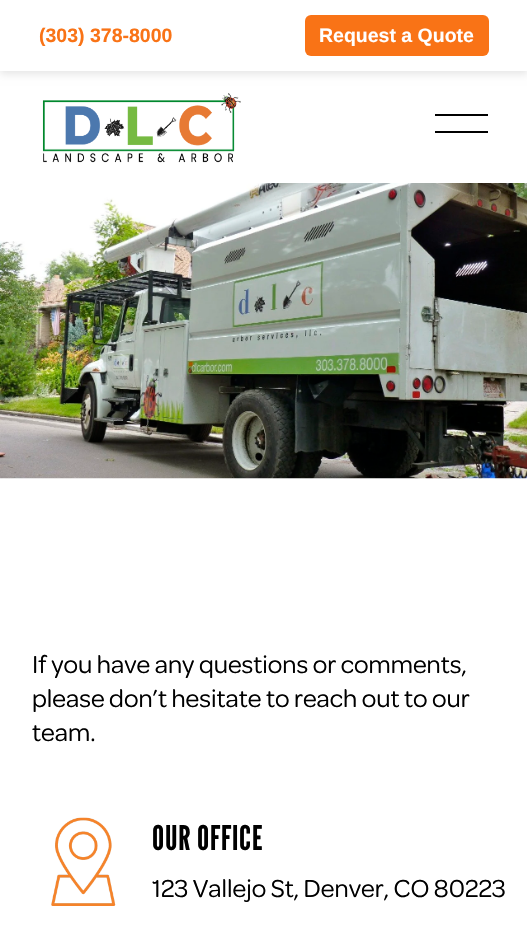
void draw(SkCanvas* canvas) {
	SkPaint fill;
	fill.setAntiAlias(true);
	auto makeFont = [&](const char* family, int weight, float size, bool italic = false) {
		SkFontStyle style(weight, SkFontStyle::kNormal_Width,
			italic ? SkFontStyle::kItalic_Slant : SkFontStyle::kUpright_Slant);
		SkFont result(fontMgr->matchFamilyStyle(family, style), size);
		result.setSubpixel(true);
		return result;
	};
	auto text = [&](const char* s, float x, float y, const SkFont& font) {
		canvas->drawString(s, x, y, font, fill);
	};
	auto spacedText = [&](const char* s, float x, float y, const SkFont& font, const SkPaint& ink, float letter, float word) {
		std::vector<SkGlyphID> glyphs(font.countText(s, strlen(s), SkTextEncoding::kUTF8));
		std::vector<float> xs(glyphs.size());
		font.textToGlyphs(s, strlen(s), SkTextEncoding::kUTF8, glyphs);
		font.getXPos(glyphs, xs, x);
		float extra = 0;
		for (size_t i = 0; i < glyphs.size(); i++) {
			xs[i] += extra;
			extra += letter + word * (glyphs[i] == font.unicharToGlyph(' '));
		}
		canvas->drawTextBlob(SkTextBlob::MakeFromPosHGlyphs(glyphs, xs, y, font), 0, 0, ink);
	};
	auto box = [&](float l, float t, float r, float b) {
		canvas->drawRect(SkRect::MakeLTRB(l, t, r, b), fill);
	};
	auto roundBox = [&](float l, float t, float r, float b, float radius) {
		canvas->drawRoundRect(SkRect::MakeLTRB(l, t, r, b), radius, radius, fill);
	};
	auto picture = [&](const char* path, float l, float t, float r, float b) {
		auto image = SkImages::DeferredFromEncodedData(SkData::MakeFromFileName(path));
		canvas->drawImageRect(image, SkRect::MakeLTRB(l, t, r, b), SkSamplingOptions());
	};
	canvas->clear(0xFFFFFFFF);
	fill.setColor(0x1A000000);
	fill.setMaskFilter(SkMaskFilter::MakeBlur(kNormal_SkBlurStyle, 4));
	canvas->drawRect(SkRect::MakeLTRB(0, 3, 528, 74), fill);
	fill.setMaskFilter(nullptr);
	fill.setColor(0xFFFFFFFF);
	box(0, 0, 527, 71);
	fill.setColor(0xFFF97316);
	roundBox(305, 15, 489, 56, 6);
	picture("image0.png", 42, 93, 241, 163);
	fill.setColor(0xFF000000);
	box(435, 114, 488, 116);
	box(435, 131, 488, 133);
	picture("image1.png", 0, 183, 527, 479);
	picture("image2.png", 51, 817, 116, 906);
	auto font1 = makeFont("Liberation Sans", 700, 19.5f);
	fill.setColor(0xFFF97316);
	text("(303) 378-8000", 39, 42, font1);
	fill.setColor(0xFFFFFFFF);
	text("Request a Quote", 319, 42, font1);
	auto font2 = makeFont("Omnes", 400, 26.25f);
	fill.setColor(0xFF000000);
	text("If you have any questions or comments,", 32, 673, font2);
	text("please don’t hesitate to reach out to our", 32, 707, font2);
	text("team.", 32, 741, font2);
	auto font3 = makeFont("League Gothic", 400, 34);
	spacedText("OUR OFFICE", 152, 850, font3, fill, 0.75f, 0);
	text("123 Vallejo St, Denver, CO 80223", 152, 897, font2);
}
